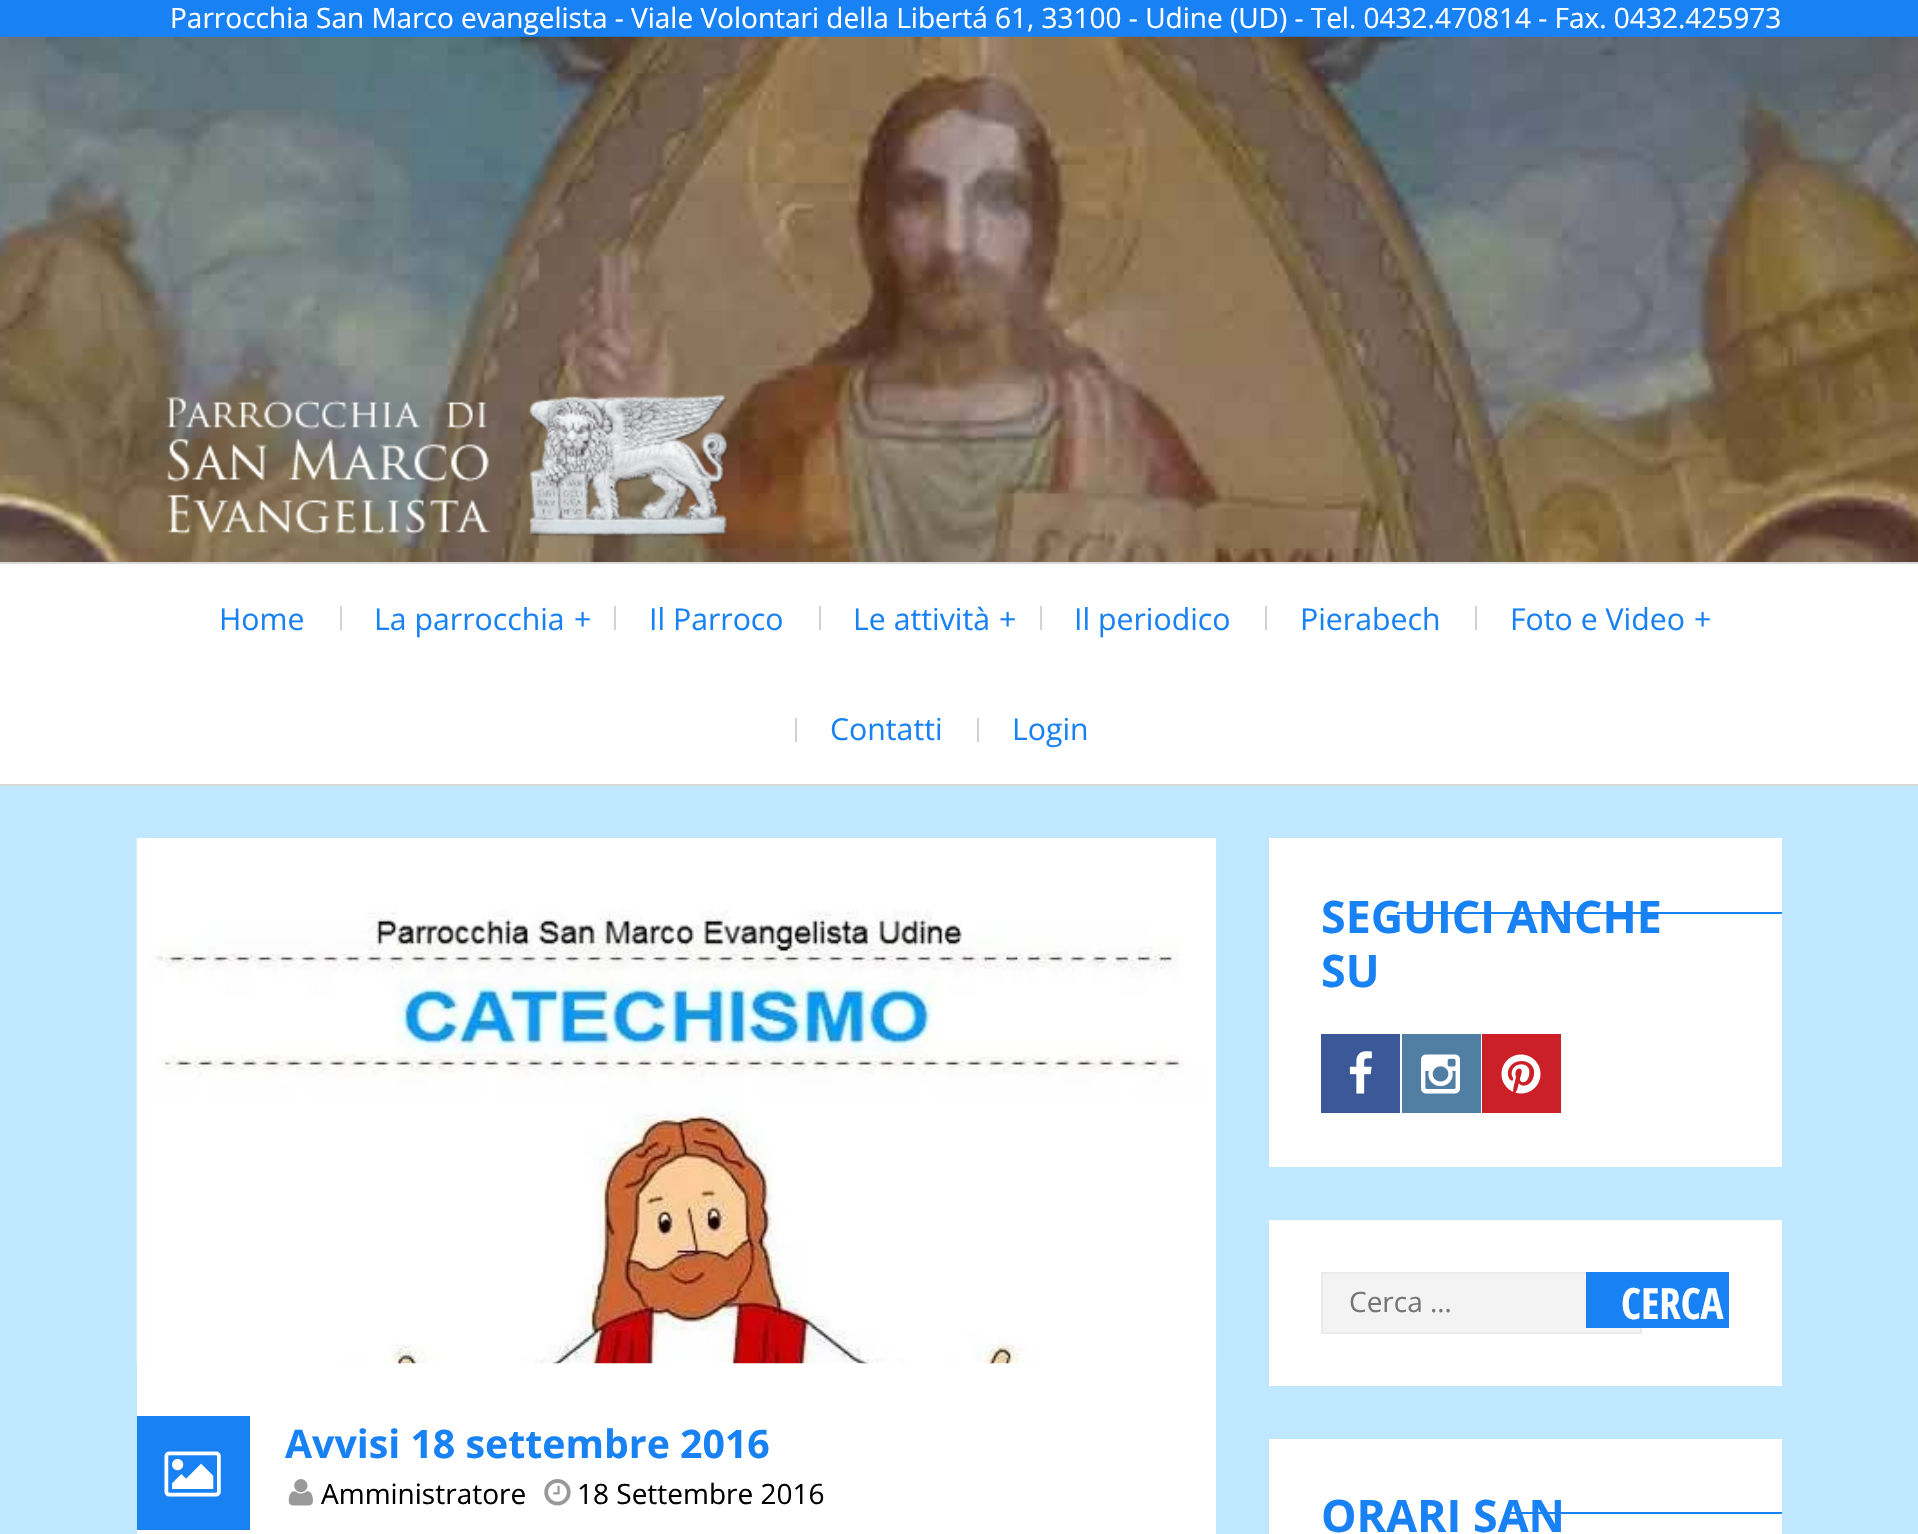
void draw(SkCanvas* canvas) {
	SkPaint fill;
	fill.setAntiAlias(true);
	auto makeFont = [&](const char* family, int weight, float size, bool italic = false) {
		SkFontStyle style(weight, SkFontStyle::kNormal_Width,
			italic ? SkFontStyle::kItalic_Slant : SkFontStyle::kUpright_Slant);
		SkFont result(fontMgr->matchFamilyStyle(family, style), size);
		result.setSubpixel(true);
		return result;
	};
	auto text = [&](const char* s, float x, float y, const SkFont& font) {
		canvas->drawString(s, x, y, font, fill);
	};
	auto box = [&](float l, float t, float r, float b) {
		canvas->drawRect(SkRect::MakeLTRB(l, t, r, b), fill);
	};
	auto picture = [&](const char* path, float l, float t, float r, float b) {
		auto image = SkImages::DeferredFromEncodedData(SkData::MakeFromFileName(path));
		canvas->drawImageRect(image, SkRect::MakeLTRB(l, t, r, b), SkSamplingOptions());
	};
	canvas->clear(0xFF1882F4);
	picture("image1.png", 0, 36, 1918, 562);
	picture("image0.png", 166, 394, 729, 538);
	fill.setColor(0xFFFFFFFF);
	box(0, 564, 1918, 784);
	fill.setColor(0xFFD9D9D9);
	box(0, 562, 1918, 564);
	box(0, 784, 1918, 786);
	fill.setColor(0xFFD3D3D3);
	box(340, 606, 342, 630);
	box(614, 606, 616, 630);
	box(819, 606, 821, 630);
	box(1040, 606, 1042, 630);
	box(1265, 606, 1267, 630);
	box(1475, 606, 1477, 630);
	box(795, 718, 797, 742);
	box(977, 718, 979, 742);
	fill.setColor(0xFFBFE8FF);
	box(0, 786, 1918, 1534);
	fill.setColor(0xFFFFFFFF);
	box(137, 838, 1216, 1534);
	picture("image2.png", 136, 838, 1217, 1364);
	fill.setColor(0xFF1882F5);
	box(137, 1416, 250, 1530);
	picture("image3.png", 164, 1451, 221, 1497);
	picture("image4.png", 288, 1479, 313, 1506);
	picture("image5.png", 544, 1479, 571, 1506);
	fill.setColor(0xFFFFFFFF);
	box(1269, 838, 1782, 1167);
	fill.setColor(0xFF1882F4);
	box(1397, 912, 1782, 914);
	fill.setColor(0xFF3B5998);
	box(1321, 1034, 1400, 1113);
	picture("image6.png", 1349, 1051, 1372, 1094);
	fill.setColor(0xFF517FA4);
	box(1402, 1034, 1481, 1113);
	picture("image7.png", 1421, 1054, 1460, 1094);
	fill.setColor(0xFFCB2027);
	box(1482, 1034, 1561, 1113);
	picture("image8.png", 1501, 1054, 1541, 1094);
	fill.setColor(0xFFFFFFFF);
	box(1269, 1220, 1782, 1386);
	fill.setColor(0xFFF3F3F3);
	canvas->drawRect(SkRect::MakeLTRB(1322, 1273, 1641, 1333), fill);
	fill.setStyle(SkPaint::kStroke_Style);
	fill.setStrokeWidth(2);
	fill.setColor(0xFFEBEBEB);
	canvas->drawRect(SkRect::MakeLTRB(1322, 1273, 1641, 1333), fill);
	fill.setStyle(SkPaint::kFill_Style);
	fill.setColor(0xFF1882F4);
	box(1586, 1272, 1729, 1328);
	fill.setColor(0xFFFFFFFF);
	box(1269, 1439, 1782, 1534);
	fill.setColor(0xFF1882F4);
	box(1505, 1512, 1782, 1514);
	auto font1 = makeFont("Open Sans", 400, 28);
	fill.setColor(0xFFFFFFFF);
	text("Parrocchia San Marco evangelista - Viale Volontari della Libertá 61, 33100 - Udine (UD) - Tel. 0432.470814 - Fax. 0432.425973", 170, 28, font1);
	auto font2 = makeFont("Open Sans", 400, 30.25f);
	fill.setColor(0xFF1882F4);
	text("Home", 219, 630, font2);
	text("La parrocchia", 374, 630, font2);
	text("+", 574, 630, font2);
	text("Il Parroco", 649, 630, font2);
	text("Le attività", 853, 630, font2);
	text("+", 999, 630, font2);
	text("Il periodico", 1074, 630, font2);
	text("Pierabech", 1300, 630, font2);
	text("Foto e Video", 1510, 630, font2);
	text("+", 1694, 630, font2);
	text("Contatti", 830, 740, font2);
	text("Login", 1012, 740, font2);
	auto font3 = makeFont("Open Sans", 700, 39.25f);
	text("Avvisi 18 settembre 2016", 285, 1458, font3);
	fill.setColor(0xFF000000);
	text("Amministratore", 321, 1504, font1);
	text("18 Settembre 2016", 577, 1504, font1);
	auto font4 = makeFont("Open Sans", 700, 44.75f);
	fill.setColor(0xFF1882F4);
	text("SEGUICI ANCHE", 1321, 933, font4);
	text("SU", 1321, 987, font4);
	fill.setColor(0xFF757575);
	text("Cerca …", 1349, 1312, font1);
	auto font5 = makeFont("Open Sans Condensed", 700, 43);
	fill.setColor(0xFFFFFFFF);
	text("CERCA", 1621, 1319, font5);
	fill.setColor(0xFF1882F4);
	text("ORARI SAN", 1321, 1532, font4);
}
